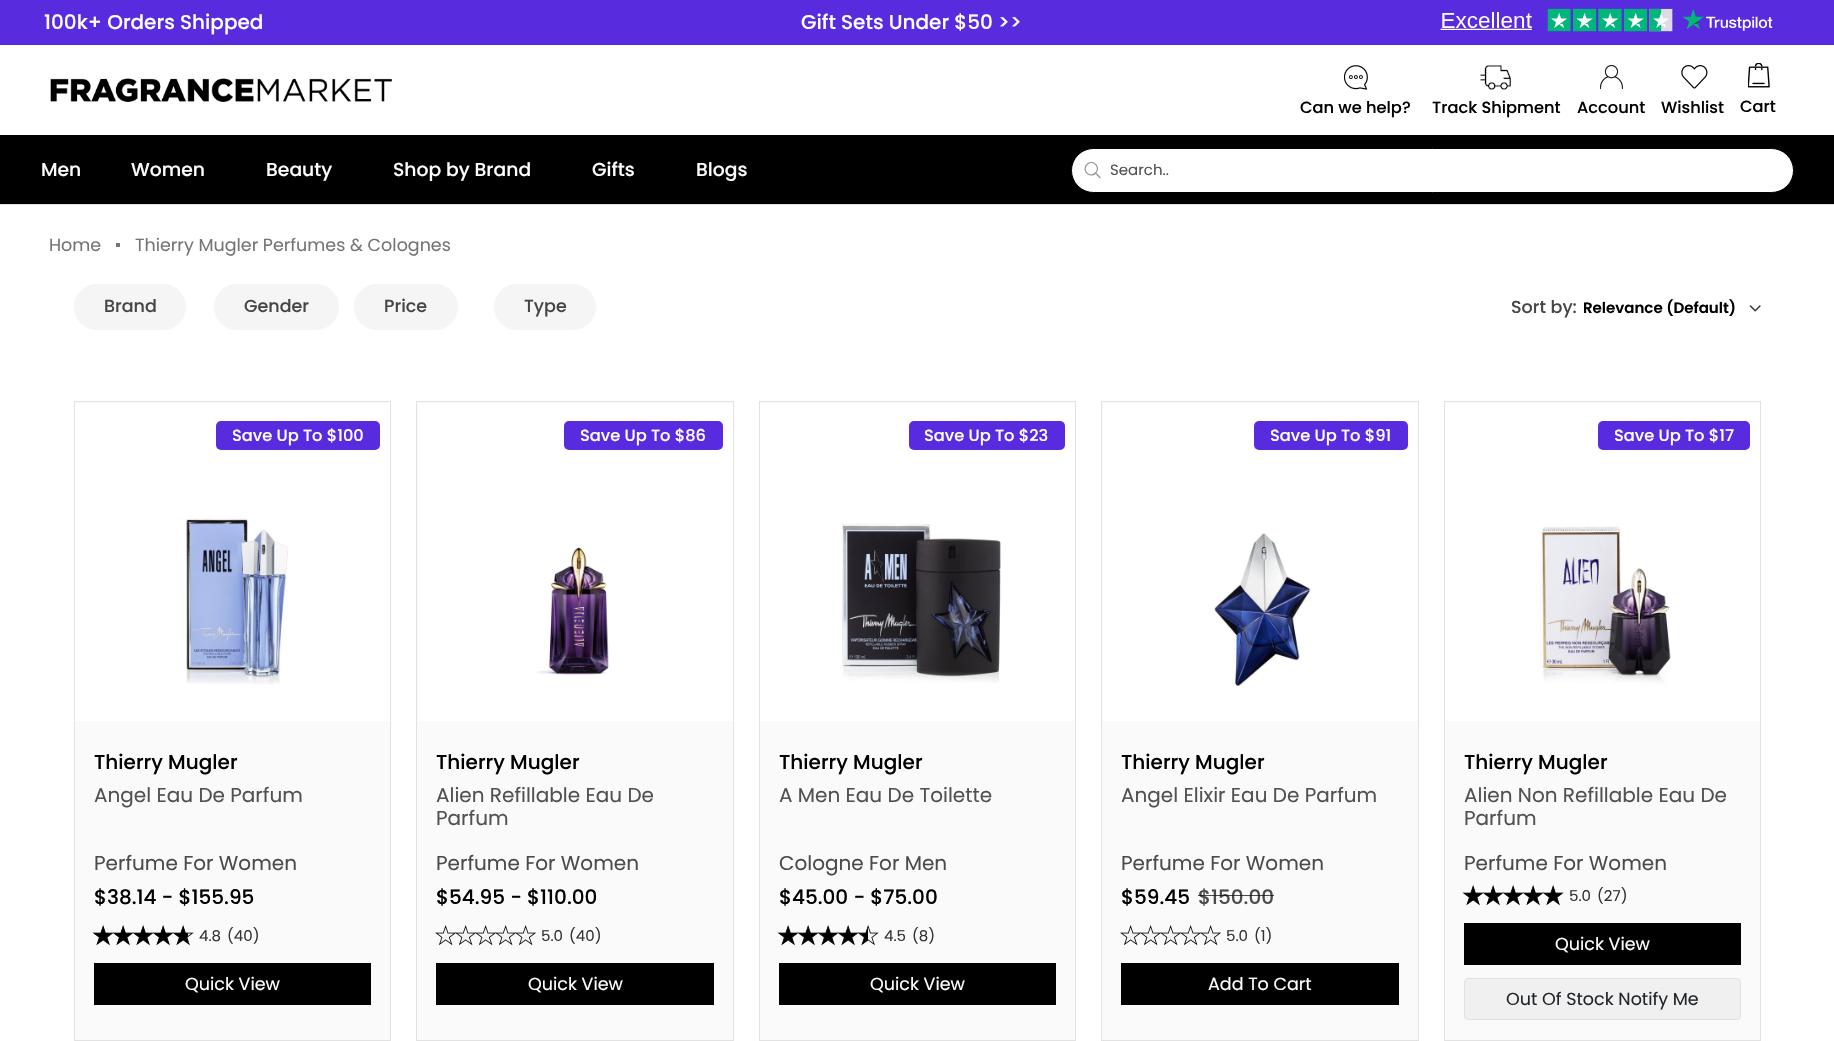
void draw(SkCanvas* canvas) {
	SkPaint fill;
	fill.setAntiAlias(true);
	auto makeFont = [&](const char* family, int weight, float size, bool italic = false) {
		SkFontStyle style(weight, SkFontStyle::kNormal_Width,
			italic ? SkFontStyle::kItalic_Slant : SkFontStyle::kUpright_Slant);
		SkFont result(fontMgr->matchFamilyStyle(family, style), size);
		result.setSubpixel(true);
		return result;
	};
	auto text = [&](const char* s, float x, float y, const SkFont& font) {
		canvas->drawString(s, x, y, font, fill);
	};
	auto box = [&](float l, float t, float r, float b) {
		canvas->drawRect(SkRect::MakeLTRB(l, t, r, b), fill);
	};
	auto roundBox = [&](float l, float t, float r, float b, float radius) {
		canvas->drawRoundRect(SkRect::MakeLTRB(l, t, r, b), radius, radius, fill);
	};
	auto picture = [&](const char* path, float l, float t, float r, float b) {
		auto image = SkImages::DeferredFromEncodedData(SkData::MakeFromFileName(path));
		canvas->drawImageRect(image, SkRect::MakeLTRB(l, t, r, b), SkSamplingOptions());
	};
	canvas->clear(0xFFFFFFFF);
	fill.setColor(0xFF582BDE);
	box(0, 0, 1834, 44);
	fill.setColor(0xFF5229CE);
	box(0, 44, 1834, 45);
	picture("image0.png", 1440, 8, 1773, 32);
	picture("image1.png", 50, 78, 392, 102);
	picture("image2.png", 1344, 65, 1368, 90);
	picture("image3.png", 1480, 65, 1511, 90);
	picture("image4.png", 1600, 65, 1623, 89);
	picture("image5.png", 1681, 65, 1708, 89);
	picture("image6.png", 1748, 63, 1770, 88);
	fill.setColor(0xFFE1E1E3);
	box(0, 204, 1834, 205);
	fill.setColor(0xFF000000);
	box(0, 135, 1834, 204);
	fill.setColor(0xFFFFFFFF);
	canvas->drawRoundRect(SkRect::MakeLTRB(1071.5f, 148.5f, 1793.5f, 192.5f), 22, 22, fill);
	fill.setStyle(SkPaint::kStroke_Style);
	fill.setStrokeWidth(1);
	fill.setColor(0xFF000000);
	canvas->drawRoundRect(SkRect::MakeLTRB(1071.5f, 148.5f, 1793.5f, 192.5f), 22, 22, fill);
	fill.setStrokeWidth(1.2f);
	fill.setStrokeCap(SkPaint::kRound_Cap);
	fill.setStrokeJoin(SkPaint::kRound_Join);
	fill.setColor(0xFF909294);
	canvas->drawPath(SkPathBuilder().moveTo(1100, 177.5f).lineTo(1095.5f, 173).moveTo(1095.5f, 173).cubicTo(1101.5f, 167.5f, 1092.5f, 158.5f, 1087, 164.5f).cubicTo(1081, 170, 1090, 179, 1095.5f, 173).close().detach(), fill);
	fill.setStyle(SkPaint::kFill_Style);
	fill.setColor(0xFF757575);
	box(116, 243, 120, 247);
	fill.setColor(0xFFF5F5F5);
	roundBox(74, 284, 186, 330, 23);
	roundBox(214, 284, 339, 330, 23);
	roundBox(354, 284, 458, 330, 23);
	roundBox(494, 284, 596, 330, 23);
	picture("image7.png", 1749, 305, 1761, 312);
	fill.setColor(0xFFFAFAFA);
	canvas->drawRect(SkRect::MakeLTRB(74.5f, 401.5f, 390.5f, 1040.5f), fill);
	fill.setStyle(SkPaint::kStroke_Style);
	fill.setStrokeWidth(1);
	fill.setStrokeCap(SkPaint::kButt_Cap);
	fill.setStrokeJoin(SkPaint::kMiter_Join);
	fill.setColor(0xFFE2E2E2);
	canvas->drawRect(SkRect::MakeLTRB(74.5f, 401.5f, 390.5f, 1040.5f), fill);
	fill.setStyle(SkPaint::kFill_Style);
	fill.setColor(0xFFFFFFFF);
	box(75, 403, 390, 721);
	fill.setColor(0xFF582BDE);
	roundBox(216, 421, 380, 450, 5);
	picture("image8.png", 186, 518, 289, 685);
	picture("image9.png", 92, 925, 114, 946);
	picture("image10.png", 112, 925, 134, 946);
	picture("image10.png", 132, 925, 154, 946);
	picture("image10.png", 152, 925, 174, 946);
	picture("image11.png", 172, 925, 194, 946);
	fill.setColor(0xFF000000);
	box(94, 963, 371, 1005);
	fill.setColor(0xFFFAFAFA);
	canvas->drawRect(SkRect::MakeLTRB(416.5f, 401.5f, 733.5f, 1040.5f), fill);
	fill.setStyle(SkPaint::kStroke_Style);
	fill.setColor(0xFFE2E2E2);
	canvas->drawRect(SkRect::MakeLTRB(416.5f, 401.5f, 733.5f, 1040.5f), fill);
	fill.setStyle(SkPaint::kFill_Style);
	fill.setColor(0xFFFFFFFF);
	box(418, 403, 733, 721);
	fill.setColor(0xFF582BDE);
	roundBox(564, 421, 723, 450, 5);
	picture("image12.png", 537, 547, 609, 675);
	picture("image13.png", 435, 925, 456, 946);
	picture("image14.png", 455, 925, 476, 946);
	picture("image14.png", 475, 925, 496, 946);
	picture("image14.png", 495, 925, 516, 946);
	picture("image14.png", 515, 925, 536, 946);
	fill.setColor(0xFF000000);
	box(436, 963, 714, 1005);
	fill.setColor(0xFFFAFAFA);
	canvas->drawRect(SkRect::MakeLTRB(759.5f, 401.5f, 1075.5f, 1040.5f), fill);
	fill.setStyle(SkPaint::kStroke_Style);
	fill.setColor(0xFFE2E2E2);
	canvas->drawRect(SkRect::MakeLTRB(759.5f, 401.5f, 1075.5f, 1040.5f), fill);
	fill.setStyle(SkPaint::kFill_Style);
	fill.setColor(0xFFFFFFFF);
	box(760, 403, 1075, 721);
	fill.setColor(0xFF582BDE);
	roundBox(909, 421, 1065, 450, 5);
	picture("image15.png", 842, 523, 1001, 683);
	picture("image9.png", 777, 925, 799, 946);
	picture("image10.png", 797, 925, 819, 946);
	picture("image10.png", 817, 925, 839, 946);
	picture("image10.png", 837, 925, 859, 946);
	picture("image16.png", 857, 925, 879, 946);
	fill.setColor(0xFF000000);
	box(779, 963, 1056, 1005);
	fill.setColor(0xFFFAFAFA);
	canvas->drawRect(SkRect::MakeLTRB(1101.5f, 401.5f, 1418.5f, 1040.5f), fill);
	fill.setStyle(SkPaint::kStroke_Style);
	fill.setColor(0xFFE2E2E2);
	canvas->drawRect(SkRect::MakeLTRB(1101.5f, 401.5f, 1418.5f, 1040.5f), fill);
	fill.setStyle(SkPaint::kFill_Style);
	fill.setColor(0xFFFFFFFF);
	box(1103, 403, 1418, 721);
	fill.setColor(0xFF582BDE);
	roundBox(1254, 421, 1408, 450, 5);
	picture("image17.png", 1213, 533, 1311, 687);
	picture("image13.png", 1120, 925, 1141, 946);
	picture("image14.png", 1140, 925, 1161, 946);
	picture("image14.png", 1160, 925, 1181, 946);
	picture("image14.png", 1180, 925, 1201, 946);
	picture("image14.png", 1200, 925, 1221, 946);
	fill.setColor(0xFF000000);
	box(1121, 963, 1399, 1005);
	fill.setColor(0xFFFAFAFA);
	canvas->drawRect(SkRect::MakeLTRB(1444.5f, 401.5f, 1760.5f, 1040.5f), fill);
	fill.setStyle(SkPaint::kStroke_Style);
	fill.setColor(0xFFE2E2E2);
	canvas->drawRect(SkRect::MakeLTRB(1444.5f, 401.5f, 1760.5f, 1040.5f), fill);
	fill.setStyle(SkPaint::kFill_Style);
	fill.setColor(0xFFFFFFFF);
	box(1445, 403, 1760, 721);
	fill.setColor(0xFF582BDE);
	roundBox(1598, 421, 1750, 450, 5);
	picture("image18.png", 1541, 526, 1707, 696);
	picture("image9.png", 1462, 885, 1484, 906);
	picture("image10.png", 1482, 885, 1504, 906);
	picture("image10.png", 1502, 885, 1524, 906);
	picture("image10.png", 1522, 885, 1544, 906);
	picture("image10.png", 1542, 885, 1564, 906);
	fill.setColor(0xFF000000);
	box(1464, 923, 1741, 965);
	fill.setColor(0xFFF0F0F0);
	canvas->drawRoundRect(SkRect::MakeLTRB(1464.5f, 978.5f, 1740.5f, 1019.5f), 3.5f, 3.5f, fill);
	fill.setStyle(SkPaint::kStroke_Style);
	fill.setColor(0xFFE1E1E3);
	canvas->drawRoundRect(SkRect::MakeLTRB(1464.5f, 978.5f, 1740.5f, 1019.5f), 3.5f, 3.5f, fill);
	auto font1 = makeFont("Poppins", 500, 20);
	fill.setStyle(SkPaint::kFill_Style);
	fill.setColor(0xFFFFFFFF);
	text("100k+ Orders Shipped", 44, 29, font1);
	text("Gift Sets Under $50 >>", 801, 29, font1);
	auto font2 = makeFont("Poppins", 500, 16.25f);
	fill.setColor(0xFF000000);
	text("Can we help?", 1300, 113, font2);
	text("Track Shipment", 1432, 113, font2);
	text("Account", 1577, 113, font2);
	text("Wishlist", 1661, 113, font2);
	text("Cart", 1740, 112, font2);
	auto font3 = makeFont("Poppins", 500, 18.75f);
	fill.setColor(0xFFFFFFFF);
	text("Men", 41, 176, font3);
	text("Women", 131, 176, font3);
	text("Beauty", 266, 176, font3);
	text("Shop by Brand", 393, 176, font3);
	text("Gifts", 592, 176, font3);
	text("Blogs", 696, 176, font3);
	auto font4 = makeFont("Poppins", 400, 15);
	fill.setColor(0xFF53514F);
	text("Search..", 1110, 175, font4);
	auto font5 = makeFont("Poppins", 400, 17.5f);
	fill.setColor(0xFF757575);
	text("Home", 49, 251, font5);
	text("Thierry Mugler Perfumes & Colognes", 135, 251, font5);
	auto font6 = makeFont("Poppins", 500, 17.5f);
	fill.setColor(0xFF464646);
	text("Brand", 104, 312, font6);
	text("Gender", 244, 312, font6);
	text("Price", 384, 312, font6);
	text("Type", 524, 312, font6);
	text("Sort by:", 1511, 313, font6);
	auto font7 = makeFont("Poppins", 600, 15);
	fill.setColor(0xFF000000);
	text("Relevance (Default)", 1583, 313, font7);
	fill.setColor(0xFFFFFFFF);
	text("Save Up To $100", 232, 441, font2);
	fill.setColor(0xFF000000);
	text("Thierry Mugler", 94, 769, font1);
	auto font8 = makeFont("Poppins", 400, 20);
	fill.setColor(0xFF53514F);
	text("Angel Eau De Parfum", 94, 802, font8);
	fill.setColor(0xFF4D4B49);
	text("Perfume For Women", 94, 870, font8);
	fill.setColor(0xFF000000);
	text("$38.14 - $155.95", 94, 904, font1);
	fill.setColor(0xFF333333);
	text("4.8", 199, 941, font4);
	text("(40)", 227, 941, font4);
	fill.setColor(0xFFFFFFFF);
	text("Quick View", 185, 990, font5);
	text("Save Up To $86", 580, 441, font2);
	fill.setColor(0xFF000000);
	text("Thierry Mugler", 436, 769, font1);
	fill.setColor(0xFF53514F);
	text("Alien Refillable Eau De", 436, 802, font8);
	text("Parfum", 436, 825, font8);
	fill.setColor(0xFF4D4B49);
	text("Perfume For Women", 436, 870, font8);
	fill.setColor(0xFF000000);
	text("$54.95 - $110.00", 436, 904, font1);
	fill.setColor(0xFF333333);
	text("5.0", 541, 941, font4);
	text("(40)", 569, 941, font4);
	fill.setColor(0xFFFFFFFF);
	text("Quick View", 528, 990, font5);
	text("Save Up To $23", 924, 441, font2);
	fill.setColor(0xFF000000);
	text("Thierry Mugler", 779, 769, font1);
	fill.setColor(0xFF53514F);
	text("A Men Eau De Toilette", 779, 802, font8);
	fill.setColor(0xFF4D4B49);
	text("Cologne For Men", 779, 870, font8);
	fill.setColor(0xFF000000);
	text("$45.00 - $75.00", 779, 904, font1);
	fill.setColor(0xFF333333);
	text("4.5", 884, 941, font4);
	text("(8)", 912, 941, font4);
	fill.setColor(0xFFFFFFFF);
	text("Quick View", 870, 990, font5);
	text("Save Up To $91", 1270, 441, font2);
	fill.setColor(0xFF000000);
	text("Thierry Mugler", 1121, 769, font1);
	fill.setColor(0xFF53514F);
	text("Angel Elixir Eau De Parfum", 1121, 802, font8);
	fill.setColor(0xFF4D4B49);
	text("Perfume For Women", 1121, 870, font8);
	fill.setColor(0xFF000000);
	text("$59.45", 1121, 904, font1);
	fill.setColor(0xFF4D4B49);
	text("$150.00", 1198, 904, font1);
	fill.setColor(0xBF121212);
	box(1198, 895, 1274, 896);
	fill.setColor(0xFF333333);
	text("5.0", 1226, 941, font4);
	text("(1)", 1254, 941, font4);
	fill.setColor(0xFFFFFFFF);
	text("Add To Cart", 1208, 990, font5);
	text("Save Up To $17", 1614, 441, font2);
	fill.setColor(0xFF000000);
	text("Thierry Mugler", 1464, 769, font1);
	fill.setColor(0xFF53514F);
	text("Alien Non Refillable Eau De", 1464, 802, font8);
	text("Parfum", 1464, 825, font8);
	fill.setColor(0xFF4D4B49);
	text("Perfume For Women", 1464, 870, font8);
	fill.setColor(0xFF333333);
	text("5.0", 1569, 901, font4);
	text("(27)", 1597, 901, font4);
	fill.setColor(0xFFFFFFFF);
	text("Quick View", 1555, 950, font5);
	fill.setColor(0xFF212529);
	text("Out Of Stock Notify Me", 1506, 1005, font5);
}
